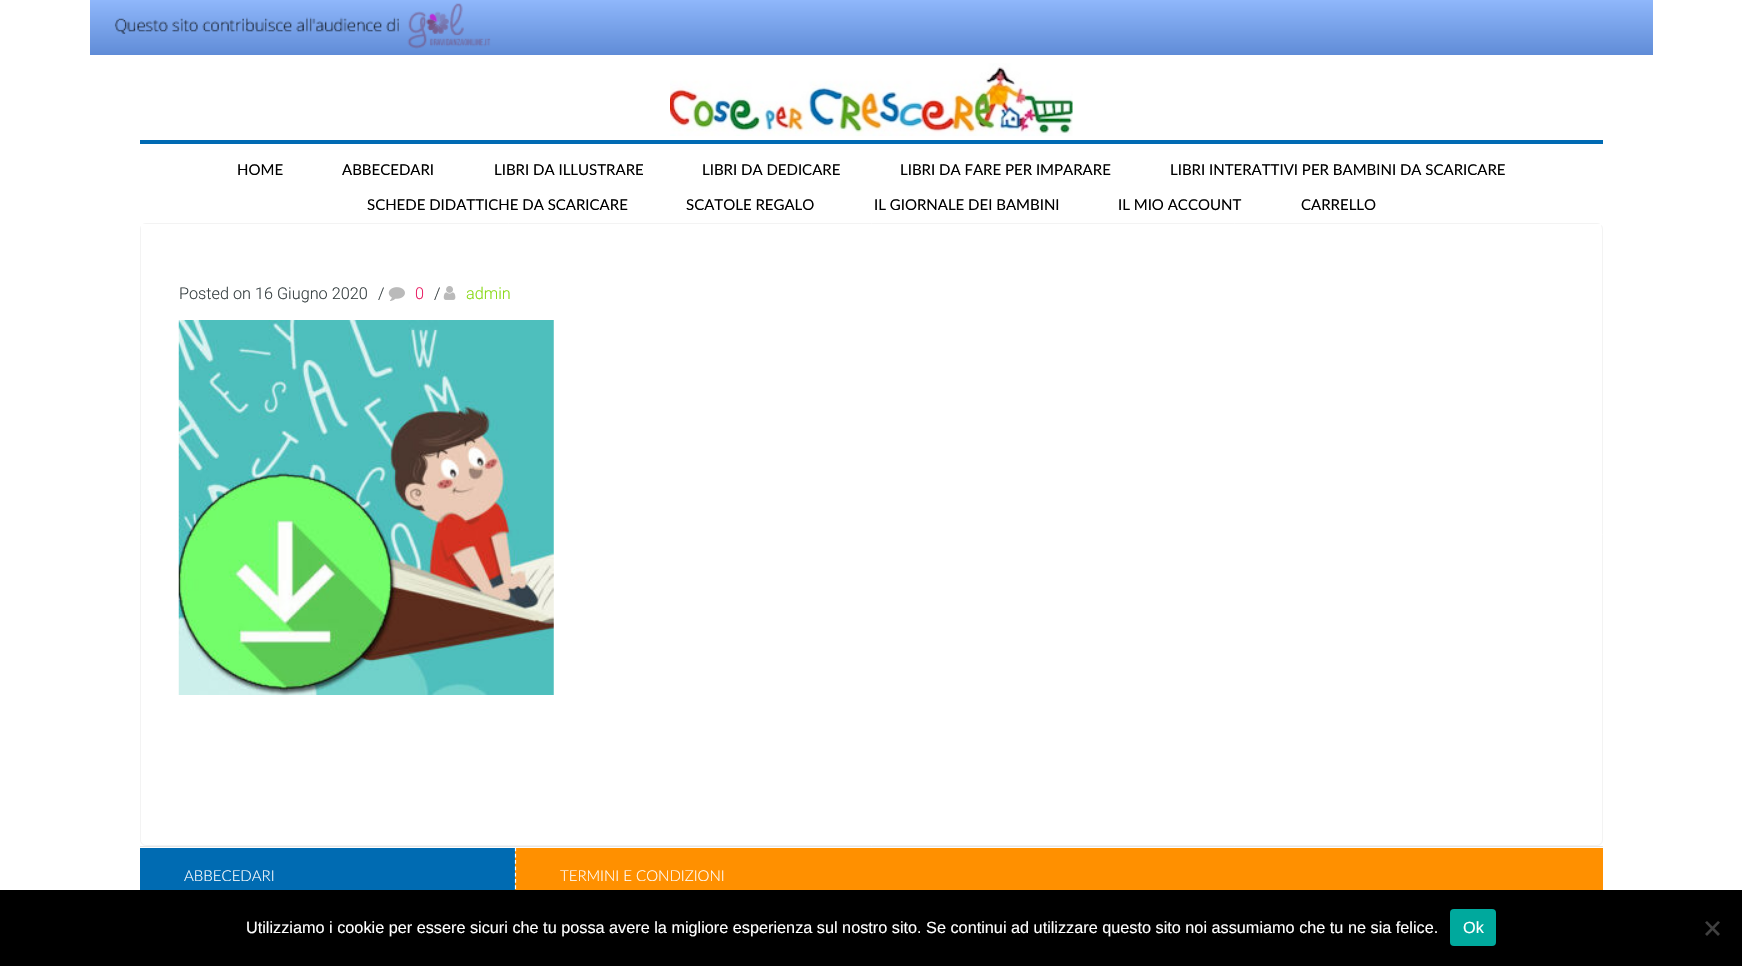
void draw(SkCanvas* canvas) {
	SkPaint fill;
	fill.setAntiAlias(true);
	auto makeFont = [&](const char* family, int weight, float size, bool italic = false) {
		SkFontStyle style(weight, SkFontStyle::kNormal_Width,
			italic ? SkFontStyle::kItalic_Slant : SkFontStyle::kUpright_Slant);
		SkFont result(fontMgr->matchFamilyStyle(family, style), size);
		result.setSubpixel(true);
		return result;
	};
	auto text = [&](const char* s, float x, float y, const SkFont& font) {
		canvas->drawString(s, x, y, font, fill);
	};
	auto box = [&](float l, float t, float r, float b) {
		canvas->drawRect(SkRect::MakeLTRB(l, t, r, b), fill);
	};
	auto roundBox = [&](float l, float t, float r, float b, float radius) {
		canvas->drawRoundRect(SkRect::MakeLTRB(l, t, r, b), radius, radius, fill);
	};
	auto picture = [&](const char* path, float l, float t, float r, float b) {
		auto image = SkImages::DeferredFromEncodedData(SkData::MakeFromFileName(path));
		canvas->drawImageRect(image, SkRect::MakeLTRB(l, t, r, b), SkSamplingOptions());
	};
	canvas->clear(0xFFFFFFFF);
	{
		const SkColor colors[] = {0xFF8FB7FB, 0xFF608CD7};
		const float stops[] = {0, 1};
		const SkPoint ends[] = {{871, 0}, {871, 55}};
		fill.setShader(SkGradientShader::MakeLinear(ends, colors, stops, 2, SkTileMode::kClamp));
		fill.setAlpha(255);
	}
	box(90, 0, 1653, 55);
	picture("image0.png", 114, 3, 491, 49);
	fill.setShader(nullptr);
	fill.setColor(0xFF006AB3);
	box(140, 140, 1603, 144);
	picture("image1.png", 670, 63, 1073, 136);
	fill.setStyle(SkPaint::kStroke_Style);
	fill.setStrokeWidth(1);
	fill.setColor(0xFFF3F3F3);
	canvas->drawRoundRect(SkRect::MakeLTRB(140.5f, 223.5f, 1602.5f, 845.5f), 5.5f, 5.5f, fill);
	fill.setStyle(SkPaint::kFill_Style);
	fill.setColor(0xFFFFFFFF);
	canvas->drawPath(SkPathBuilder().moveTo(141, 224).lineTo(1601, 224).lineTo(1601, 839).cubicTo(1601, 842.5f, 1598.5f, 845, 1595, 845).lineTo(147, 845).cubicTo(143.5f, 845, 141, 842.5f, 141, 839).close().detach(), fill);
	picture("image2.png", 388, 287, 405, 301);
	picture("image3.png", 443, 286, 456, 300);
	picture("image4.png", 178, 320, 554, 695);
	fill.setColor(0xFFE6E6E6);
	box(140, 846, 1603, 847);
	fill.setColor(0xFF006BB2);
	box(140, 848, 515, 890);
	fill.setColor(0xFFFF9000);
	box(515, 848, 1603, 890);
	fill.setStyle(SkPaint::kStroke_Style);
	fill.setStrokeWidth(1.2f);
	fill.setColor(0xFFFFFFFF);
	fill.setPathEffect(SkDashPathEffect::Make({{3.75f, 2.56f}}, 0));
	canvas->drawPath(SkPathBuilder().moveTo(515.5f, 847.5f).lineTo(515.5f, 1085).detach(), fill);
	fill.setPathEffect(nullptr);
	fill.setStyle(SkPaint::kFill_Style);
	fill.setColor(0xFF000000);
	box(0, 890, 1742, 966);
	fill.setColor(0xFF00A99D);
	roundBox(1450, 909, 1496, 946, 4);
	fill.setColor(0xFF404040);
	canvas->drawPath(SkPathBuilder().moveTo(1718, 921).lineTo(1720, 922.5f).lineTo(1707, 936).lineTo(1705, 934).close().detach(), fill);
	canvas->drawPath(SkPathBuilder().moveTo(1705, 922.5f).lineTo(1707, 921).lineTo(1720, 934).lineTo(1718, 936).close().detach(), fill);
	auto font1 = makeFont("Lato", 400, 15);
	fill.setColor(0xFF000000);
	text("HOME", 237, 175, font1);
	text("ABBECEDARI", 342, 175, font1);
	text("LIBRI DA ILLUSTRARE", 494, 175, font1);
	text("LIBRI DA DEDICARE", 702, 175, font1);
	text("LIBRI DA FARE PER IMPARARE", 900, 175, font1);
	text("LIBRI INTERATTIVI PER BAMBINI DA SCARICARE", 1170, 175, font1);
	text("SCHEDE DIDATTICHE DA SCARICARE", 367, 210, font1);
	text("SCATOLE REGALO", 686, 210, font1);
	text("IL GIORNALE DEI BAMBINI", 874, 210, font1);
	text("IL MIO ACCOUNT", 1118, 210, font1);
	text("CARRELLO", 1301, 210, font1);
	auto font2 = makeFont("Roboto", 300, 16.25f);
	fill.setColor(0xFF374042);
	text("Posted on 16 Giugno 2020", 179, 299, font2);
	text("/", 378, 299, font2);
	fill.setColor(0xFFE91E63);
	text("0", 415, 299, font2);
	fill.setColor(0xFF374042);
	text("/", 434, 299, font2);
	fill.setColor(0xFF88D914);
	text("admin", 466, 299, font2);
	auto font3 = makeFont("Lato", 300, 15);
	fill.setColor(0xFFFFFFFF);
	text("ABBECEDARI", 184, 881, font3);
	text("TERMINI E CONDIZIONI", 560, 881, font3);
	auto font4 = makeFont("Liberation Sans", 400, 16.25f);
	text("Utilizziamo i cookie per essere sicuri che tu possa avere la migliore esperienza sul nostro sito. Se continui ad utilizzare questo sito noi assumiamo che tu ne sia felice.", 246, 933, font4);
	text("Ok", 1463, 933, font4);
}
